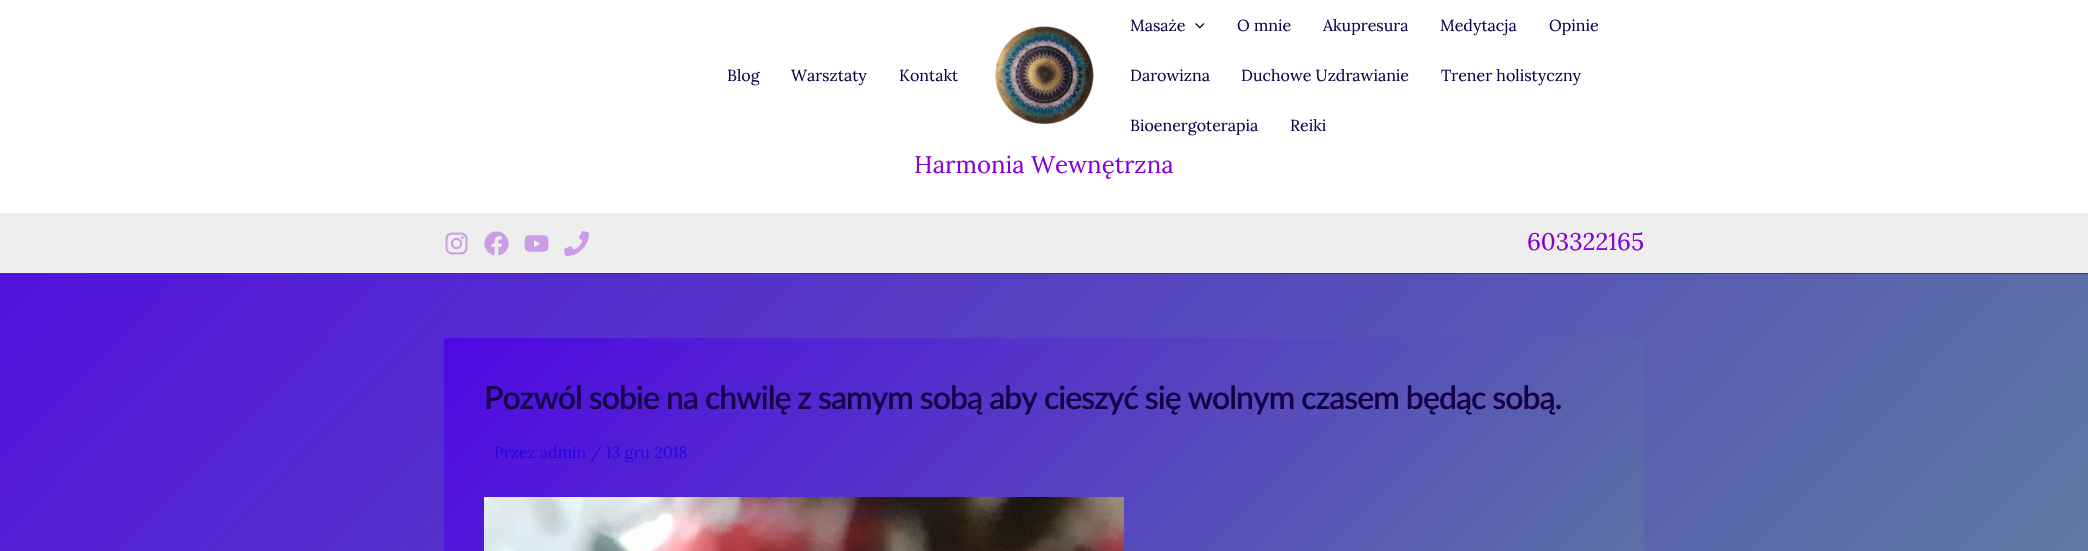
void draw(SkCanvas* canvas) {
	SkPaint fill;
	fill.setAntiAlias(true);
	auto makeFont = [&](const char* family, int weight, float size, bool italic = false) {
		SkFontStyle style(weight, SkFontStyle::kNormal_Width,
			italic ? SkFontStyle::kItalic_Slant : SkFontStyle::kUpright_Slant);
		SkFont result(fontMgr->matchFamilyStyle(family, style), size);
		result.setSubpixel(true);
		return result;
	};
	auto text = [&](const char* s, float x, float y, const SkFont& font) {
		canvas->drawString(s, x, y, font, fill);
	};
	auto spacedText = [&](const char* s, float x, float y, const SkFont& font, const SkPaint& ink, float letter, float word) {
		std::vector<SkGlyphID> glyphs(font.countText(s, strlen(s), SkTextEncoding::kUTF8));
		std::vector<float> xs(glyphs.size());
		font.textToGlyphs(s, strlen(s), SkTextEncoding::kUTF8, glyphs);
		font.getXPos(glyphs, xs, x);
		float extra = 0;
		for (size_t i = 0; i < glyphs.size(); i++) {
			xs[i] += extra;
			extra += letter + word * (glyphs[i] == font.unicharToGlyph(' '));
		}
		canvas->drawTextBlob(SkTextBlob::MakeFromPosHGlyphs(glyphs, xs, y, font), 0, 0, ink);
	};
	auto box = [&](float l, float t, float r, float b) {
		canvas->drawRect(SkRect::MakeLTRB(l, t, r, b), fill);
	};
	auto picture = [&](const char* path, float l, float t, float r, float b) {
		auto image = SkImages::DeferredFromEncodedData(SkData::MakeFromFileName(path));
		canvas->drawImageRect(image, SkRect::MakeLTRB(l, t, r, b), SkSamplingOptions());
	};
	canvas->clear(0xFFFFFFFF);
	{
		const SkColor colors[] = {0xFF4F07E3, 0xFF6ADD68};
		const float stops[] = {0, 1};
		const SkPoint ends[] = {{-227, 235}, {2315, 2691}};
		fill.setShader(SkGradientShader::MakeLinear(ends, colors, stops, 2, SkTileMode::kClamp));
		fill.setAlpha(255);
	}
	box(0, 274, 2088, 551);
	picture("image0.png", 995, 26, 1094, 125);
	picture("image1.png", 1195, 23, 1205, 29);
	fill.setShader(nullptr);
	fill.setColor(0xFFEEEEEE);
	box(0, 213, 2088, 273);
	fill.setColor(0xFF8800D7);
	box(0, 273, 2088, 274);
	picture("image2.png", 445, 232, 468, 255);
	picture("image3.png", 484, 231, 509, 256);
	picture("image4.png", 524, 235, 549, 252);
	picture("image5.png", 564, 231, 589, 256);
	{
		const SkColor colors[] = {0xFF4F07E3, 0xFF6ADD68};
		const float stops[] = {0, 1};
		const SkPoint ends[] = {{332, 450}, {1756, 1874}};
		fill.setShader(SkGradientShader::MakeLinear(ends, colors, stops, 2, SkTileMode::kClamp));
		fill.setAlpha(255);
	}
	box(444, 338, 1644, 551);
	picture("image6.png", 484, 497, 1124, 551);
	auto font1 = makeFont("Lora", 400, 16);
	fill.setShader(nullptr);
	fill.setColor(0xFF140148);
	text("Blog", 727, 81, font1);
	text("Warsztaty", 791, 81, font1);
	text("Kontakt", 899, 81, font1);
	text("Masaże", 1130, 31, font1);
	text("O mnie", 1237, 31, font1);
	text("Akupresura", 1323, 31, font1);
	text("Medytacja", 1440, 31, font1);
	text("Opinie", 1549, 31, font1);
	text("Darowizna", 1130, 81, font1);
	text("Duchowe Uzdrawianie", 1241, 81, font1);
	text("Trener holistyczny", 1441, 81, font1);
	text("Bioenergoterapia", 1130, 131, font1);
	text("Reiki", 1290, 131, font1);
	auto font2 = makeFont("Lora", 400, 24);
	fill.setColor(0xFF8800D7);
	text("Harmonia Wewnętrzna", 914, 173, font2);
	text("603322165", 1527, 250, font2);
	auto font3 = makeFont("Lato", 600, 32);
	fill.setColor(0xFF140148);
	spacedText("Pozwól sobie na chwilę z samym sobą aby cieszyć się wolnym czasem będąc sobą.", 484, 409, font3, fill, -1, 0);
	fill.setColor(0xFF2207E3);
	text("Przez admin / 13 gru 2018", 494, 458, font1);
}
